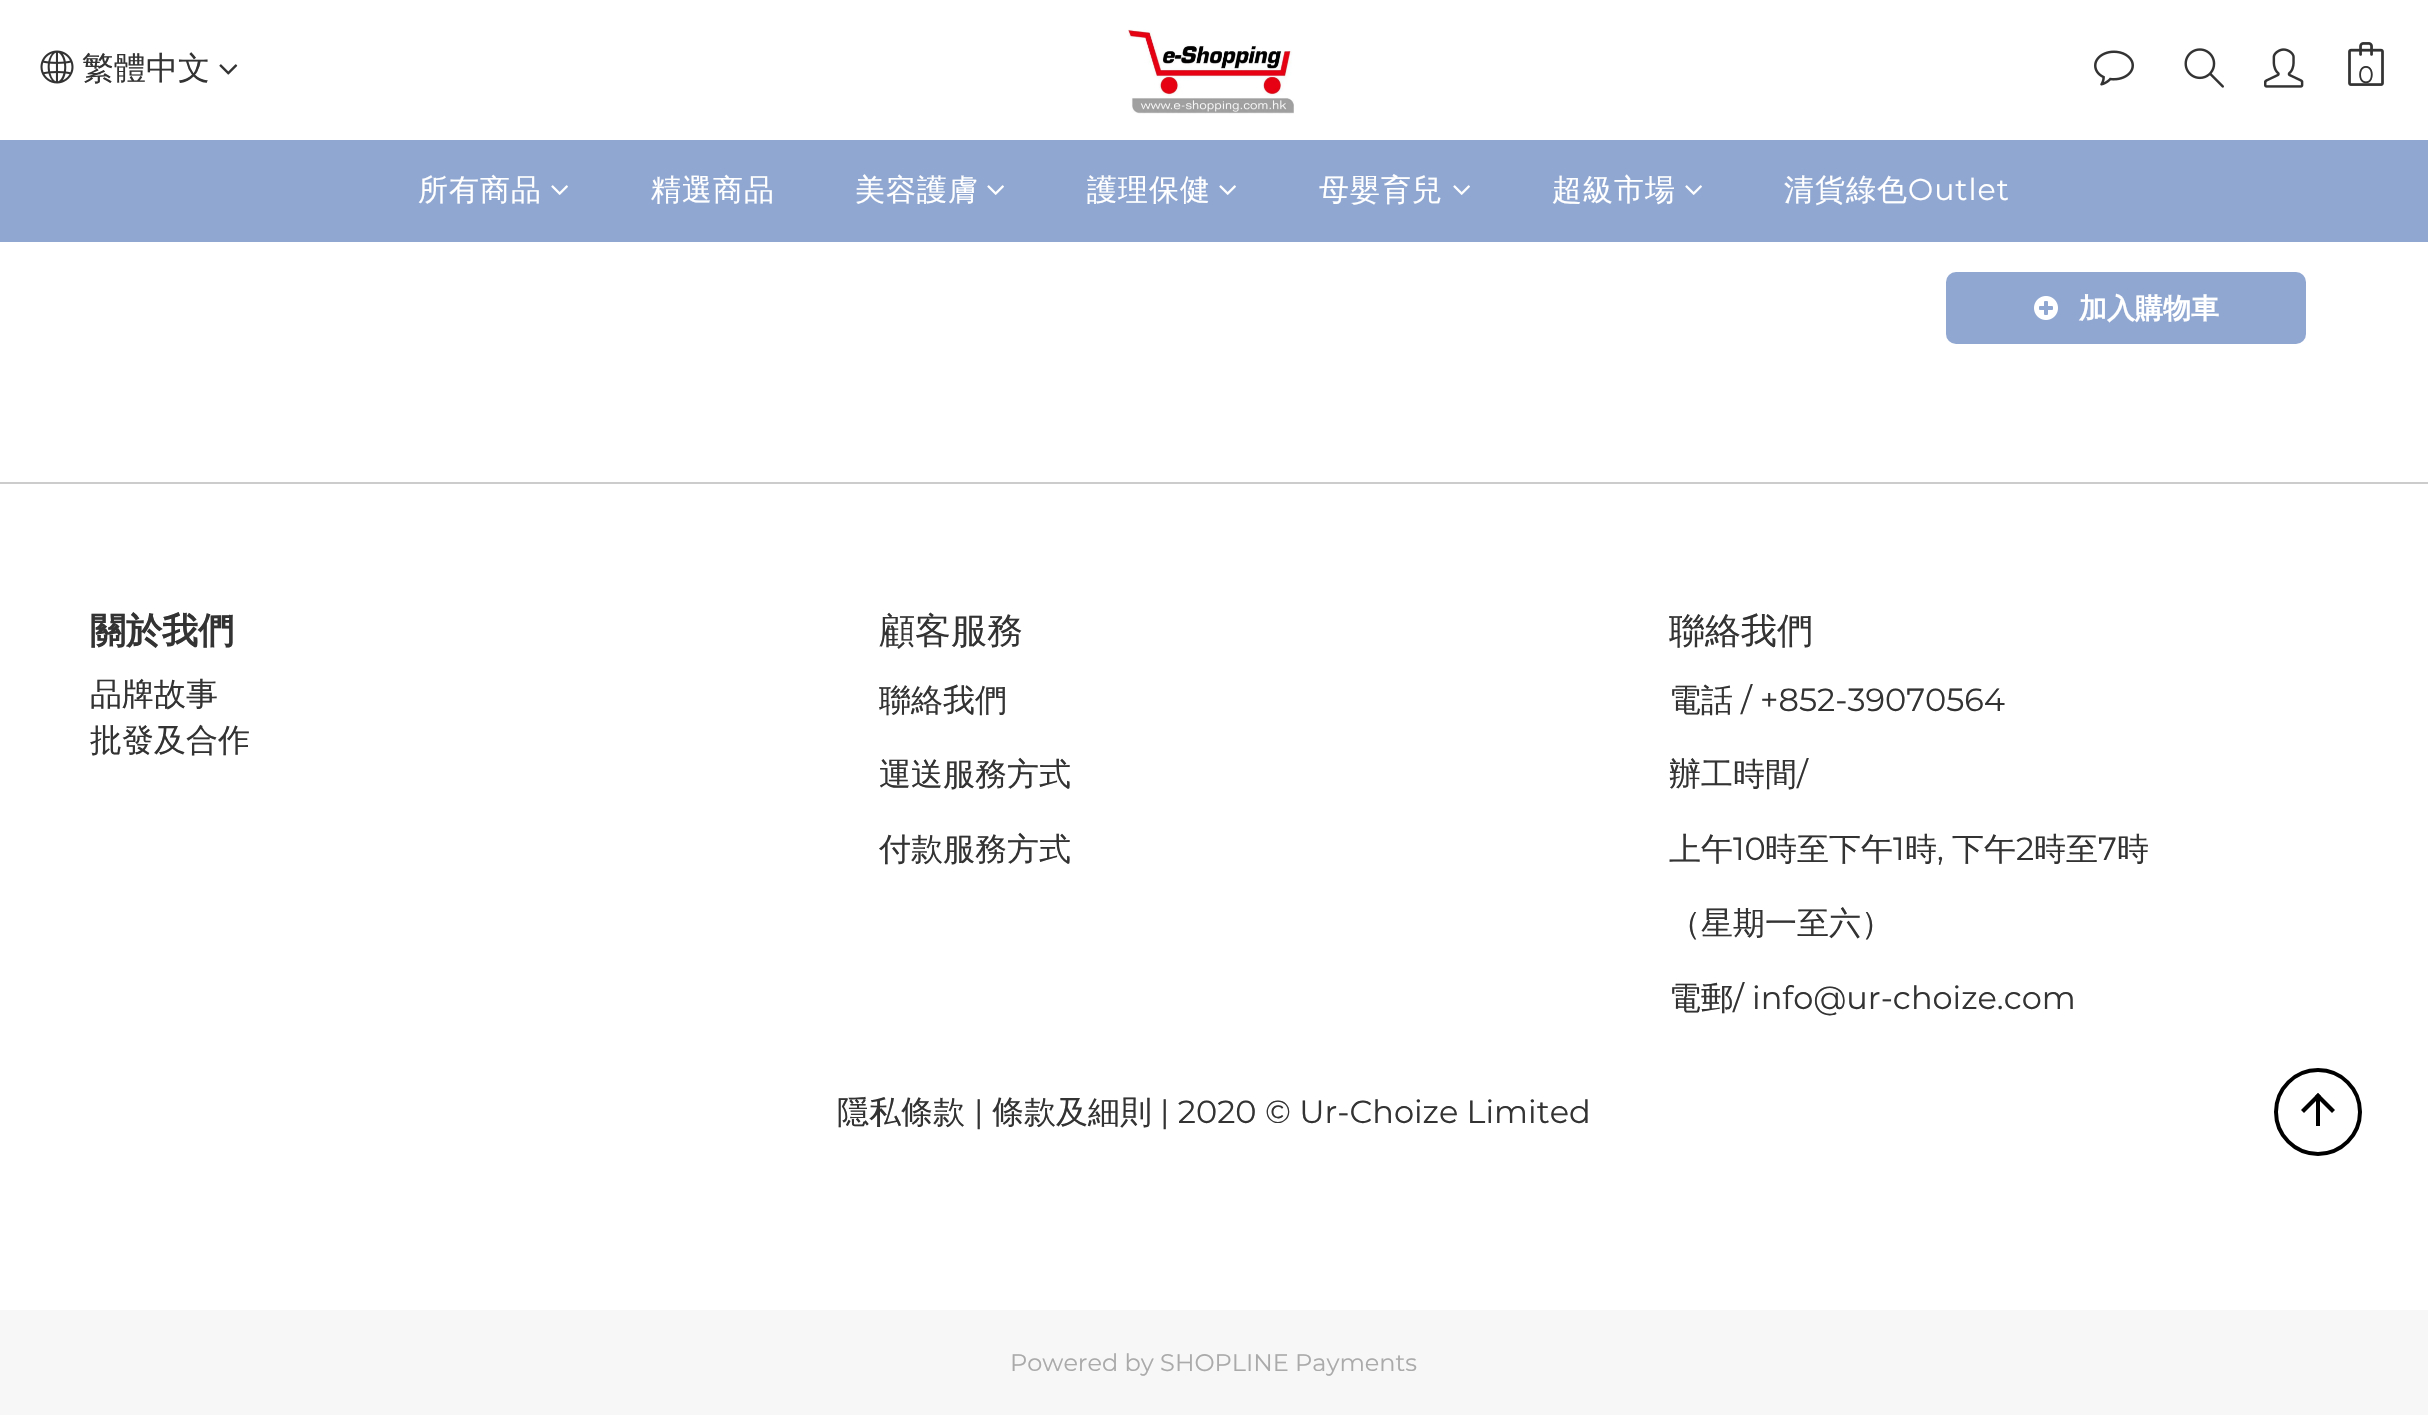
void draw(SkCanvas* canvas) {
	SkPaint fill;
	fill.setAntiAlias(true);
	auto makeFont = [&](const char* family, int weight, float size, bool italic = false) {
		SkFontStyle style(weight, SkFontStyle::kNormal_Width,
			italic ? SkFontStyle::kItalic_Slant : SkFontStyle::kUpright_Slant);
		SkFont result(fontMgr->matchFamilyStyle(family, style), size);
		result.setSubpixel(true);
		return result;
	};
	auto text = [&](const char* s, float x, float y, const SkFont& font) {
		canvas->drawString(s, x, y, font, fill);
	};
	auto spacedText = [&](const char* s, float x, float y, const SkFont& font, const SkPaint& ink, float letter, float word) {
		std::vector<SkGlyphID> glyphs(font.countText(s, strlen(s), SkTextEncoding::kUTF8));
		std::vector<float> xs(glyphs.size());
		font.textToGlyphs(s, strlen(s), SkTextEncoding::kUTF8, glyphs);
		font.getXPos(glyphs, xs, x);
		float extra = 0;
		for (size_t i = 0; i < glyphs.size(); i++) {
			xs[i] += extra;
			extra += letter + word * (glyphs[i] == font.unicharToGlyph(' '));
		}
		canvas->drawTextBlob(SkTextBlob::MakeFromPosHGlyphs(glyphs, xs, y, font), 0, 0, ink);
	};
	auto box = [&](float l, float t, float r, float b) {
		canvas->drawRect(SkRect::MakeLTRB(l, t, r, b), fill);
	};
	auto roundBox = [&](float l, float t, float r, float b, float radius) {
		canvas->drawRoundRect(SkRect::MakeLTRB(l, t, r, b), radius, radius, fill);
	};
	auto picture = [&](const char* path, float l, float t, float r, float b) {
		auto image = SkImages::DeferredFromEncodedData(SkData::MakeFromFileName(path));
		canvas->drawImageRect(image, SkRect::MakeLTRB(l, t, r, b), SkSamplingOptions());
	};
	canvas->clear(0xFFFFFFFF);
	picture("image0.png", 40, 50, 74, 84);
	picture("image1.png", 219, 64, 238, 75);
	picture("image2.png", 1128, 29, 1294, 114);
	picture("image3.png", 2094, 50, 2134, 86);
	picture("image4.png", 2184, 48, 2224, 88);
	picture("image5.png", 2264, 48, 2304, 88);
	picture("image6.png", 2348, 42, 2384, 86);
	fill.setColor(0xFF90A7D1);
	box(0, 140, 2428, 242);
	picture("image7.png", 551, 185, 568, 195);
	picture("image7.png", 987, 185, 1004, 195);
	picture("image7.png", 1219, 185, 1236, 195);
	picture("image7.png", 1453, 185, 1470, 195);
	picture("image7.png", 1685, 185, 1702, 195);
	roundBox(1946, 272, 2306, 344, 10);
	picture("image8.png", 2034, 296, 2058, 320);
	fill.setColor(0xFFCCCCCC);
	box(0, 482, 2428, 484);
	fill.setColor(0xFFF7F7F7);
	box(0, 1310, 2428, 1415);
	fill.setStyle(SkPaint::kStroke_Style);
	fill.setStrokeWidth(4);
	fill.setColor(0xFF000000);
	canvas->drawCircle(2318, 1112, 42, fill);
	fill.setStyle(SkPaint::kFill_Style);
	canvas->drawPath(SkPathBuilder().moveTo(2318, 1093).lineTo(2335, 1110).lineTo(2332, 1113).lineTo(2315, 1096).close().detach(), fill);
	canvas->drawPath(SkPathBuilder().moveTo(2318, 1093).lineTo(2321, 1096).lineTo(2304, 1113).lineTo(2301, 1110).close().detach(), fill);
	box(2316, 1098, 2320, 1126);
	auto font1 = makeFont("WenQuanYi Zen Hei", 500, 32);
	fill.setColor(0xFF333333);
	text("繁體中文", 82, 79, font1);
	auto font2 = makeFont("Montserrat", 400, 24);
	text("0", 2358, 83, font2);
	auto font3 = makeFont("WenQuanYi Zen Hei", 500, 30);
	fill.setColor(0xFFFFFFFF);
	spacedText("所有商品", 418, 200, font3, fill, 1, 0);
	spacedText("精選商品", 651, 200, font3, fill, 1, 0);
	spacedText("美容護膚", 855, 200, font3, fill, 1, 0);
	spacedText("護理保健", 1087, 200, font3, fill, 1, 0);
	spacedText("母嬰育兒", 1319, 200, font3, fill, 1, 0);
	spacedText("超級市場", 1552, 200, font3, fill, 1, 0);
	spacedText("清貨綠色", 1784, 200, font3, fill, 1, 0);
	auto font4 = makeFont("Montserrat", 400, 30);
	spacedText("Outlet", 1908, 200, font4, fill, 1, 0);
	auto font5 = makeFont("WenQuanYi Zen Hei", 700, 28);
	text("加入購物車", 2079, 318, font5);
	auto font6 = makeFont("WenQuanYi Zen Hei", 700, 36);
	fill.setColor(0xFF333333);
	text("關於我們", 90, 643, font6);
	text("品牌故事", 90, 705, font1);
	text("批發及合作", 90, 751, font1);
	auto font7 = makeFont("WenQuanYi Zen Hei", 500, 36);
	text("顧客服務", 879, 643, font7);
	text("聯絡我們", 879, 711, font1);
	text("運送服務方式", 879, 785, font1);
	text("付款服務方式", 879, 860, font1);
	text("聯絡我們", 1669, 643, font7);
	text("電話", 1669, 711, font1);
	auto font8 = makeFont("Montserrat", 400, 32);
	text("/ +852-39070564", 1741, 711, font8);
	text("辦工時間", 1669, 785, font1);
	text("/", 1797, 785, font8);
	text("上午", 1669, 860, font1);
	text("10", 1733, 860, font8);
	text("時至下午", 1765, 860, font1);
	text("1", 1893, 860, font8);
	text("時", 1905, 860, font1);
	text(",", 1937, 860, font8);
	text("下午", 1952, 860, font1);
	text("2", 2016, 860, font8);
	text("時至", 2034, 860, font1);
	text("7", 2098, 860, font8);
	text("時", 2117, 860, font1);
	text("（星期一至六）", 1669, 934, font1);
	text("電郵", 1669, 1009, font1);
	text("/ info@ur-choize.com", 1733, 1009, font8);
	text("隱私條款", 837, 1123, font1);
	text("|", 974, 1123, font8);
	text("條款及細則", 992, 1123, font1);
	text("| 2020 © Ur-Choize Limited", 1160, 1123, font8);
	fill.setColor(0xFFAAAAAA);
	text("Powered by SHOPLINE Payments", 1010, 1371, font2);
}
